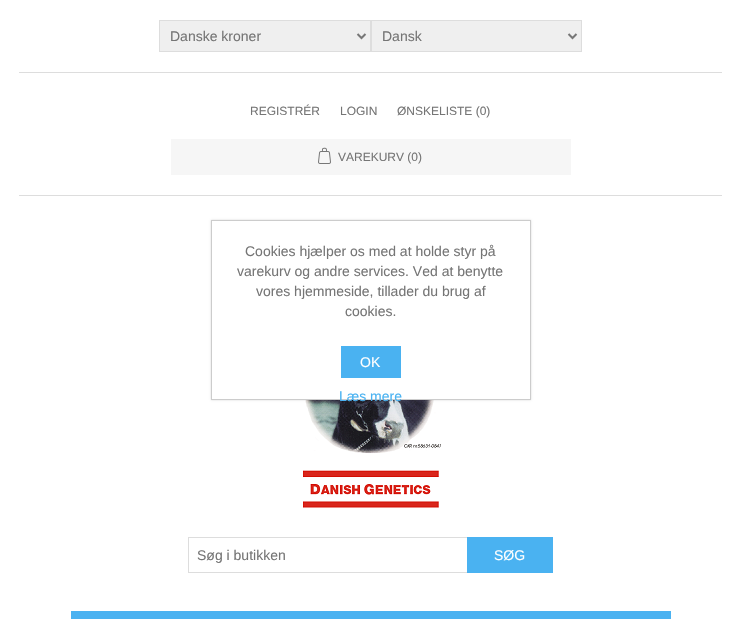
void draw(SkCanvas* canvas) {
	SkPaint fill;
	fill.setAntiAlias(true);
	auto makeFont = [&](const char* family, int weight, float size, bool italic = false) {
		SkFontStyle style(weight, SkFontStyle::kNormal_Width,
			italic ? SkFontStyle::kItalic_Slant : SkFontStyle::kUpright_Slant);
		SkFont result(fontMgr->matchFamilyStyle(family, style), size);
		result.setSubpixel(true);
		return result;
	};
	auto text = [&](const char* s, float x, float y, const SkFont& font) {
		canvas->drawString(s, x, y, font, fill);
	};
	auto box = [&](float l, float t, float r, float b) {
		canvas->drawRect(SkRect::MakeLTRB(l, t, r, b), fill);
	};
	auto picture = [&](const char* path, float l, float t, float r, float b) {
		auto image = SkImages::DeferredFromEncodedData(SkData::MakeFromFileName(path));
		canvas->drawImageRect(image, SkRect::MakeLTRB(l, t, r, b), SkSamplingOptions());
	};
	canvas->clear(0xFFFFFFFF);
	fill.setColor(0xFFDDDDDD);
	box(19, 195, 722, 196);
	box(19, 72, 722, 73);
	fill.setColor(0xFFEFEFEF);
	canvas->drawRect(SkRect::MakeLTRB(159.5f, 20.5f, 370.5f, 51.5f), fill);
	fill.setStyle(SkPaint::kStroke_Style);
	fill.setStrokeWidth(1);
	fill.setColor(0xFFDDDDDD);
	canvas->drawRect(SkRect::MakeLTRB(159.5f, 20.5f, 370.5f, 51.5f), fill);
	fill.setStrokeWidth(2);
	fill.setColor(0xFF777777);
	canvas->drawPath(SkPathBuilder().moveTo(357.5f, 34).lineTo(361.5f, 38).lineTo(365.5f, 34).detach(), fill);
	fill.setStyle(SkPaint::kFill_Style);
	fill.setColor(0xFFEFEFEF);
	canvas->drawRect(SkRect::MakeLTRB(371.5f, 20.5f, 581.5f, 51.5f), fill);
	fill.setStyle(SkPaint::kStroke_Style);
	fill.setStrokeWidth(1);
	fill.setColor(0xFFDDDDDD);
	canvas->drawRect(SkRect::MakeLTRB(371.5f, 20.5f, 581.5f, 51.5f), fill);
	fill.setStrokeWidth(2);
	fill.setColor(0xFF777777);
	canvas->drawPath(SkPathBuilder().moveTo(568.5f, 34).lineTo(572.5f, 38).lineTo(576.5f, 34).detach(), fill);
	fill.setStyle(SkPaint::kFill_Style);
	fill.setColor(0xFFF6F6F6);
	box(171, 139, 571, 175);
	picture("image0.png", 318, 147, 331, 164);
	picture("image1.png", 303, 400, 441, 508);
	fill.setStyle(SkPaint::kStroke_Style);
	fill.setStrokeWidth(1);
	fill.setColor(0xFFDDDDDD);
	canvas->drawRect(SkRect::MakeLTRB(188.5f, 537.5f, 467.5f, 572.5f), fill);
	fill.setStyle(SkPaint::kFill_Style);
	fill.setColor(0xFF4AB2F1);
	box(467, 537, 553, 573);
	box(71, 611, 671, 619);
	fill.setColor(0x26000000);
	fill.setMaskFilter(SkMaskFilter::MakeBlur(kNormal_SkBlurStyle, 1));
	canvas->drawRect(SkRect::MakeLTRB(211, 220, 531, 400), fill);
	fill.setMaskFilter(nullptr);
	fill.setColor(0xFFFFFFFF);
	canvas->drawRect(SkRect::MakeLTRB(211.5f, 220.5f, 530.5f, 399.5f), fill);
	fill.setStyle(SkPaint::kStroke_Style);
	fill.setColor(0xFFCCCCCC);
	canvas->drawRect(SkRect::MakeLTRB(211.5f, 220.5f, 530.5f, 399.5f), fill);
	fill.setStyle(SkPaint::kFill_Style);
	fill.setColor(0xFF4AB2F1);
	box(341, 346, 401, 378);
	auto font1 = makeFont("Liberation Sans", 400, 14);
	fill.setColor(0xFF757575);
	text("Danske kroner", 170, 41, font1);
	text("Dansk", 382, 41, font1);
	auto font2 = makeFont("Liberation Sans", 400, 12);
	text("REGISTRÉR", 250, 115, font2);
	text("LOGIN", 340, 115, font2);
	text("ØNSKELISTE (0)", 397, 115, font2);
	text("VAREKURV (0)", 338, 161, font2);
	text("Søg i butikken", 197, 560, font1);
	fill.setColor(0xFFFFFFFF);
	text("SØG", 494, 560, font1);
	fill.setColor(0xFF757575);
	text("Cookies hjælper os med at holde styr på", 245, 256, font1);
	text("varekurv og andre services. Ved at benytte", 237, 276, font1);
	text("vores hjemmeside, tillader du brug af", 256, 296, font1);
	text("cookies.", 345, 316, font1);
	fill.setColor(0xFFFFFFFF);
	text("OK", 360, 367, font1);
	fill.setColor(0xFF4AB2F1);
	text("Læs mere", 339, 401, font1);
}
